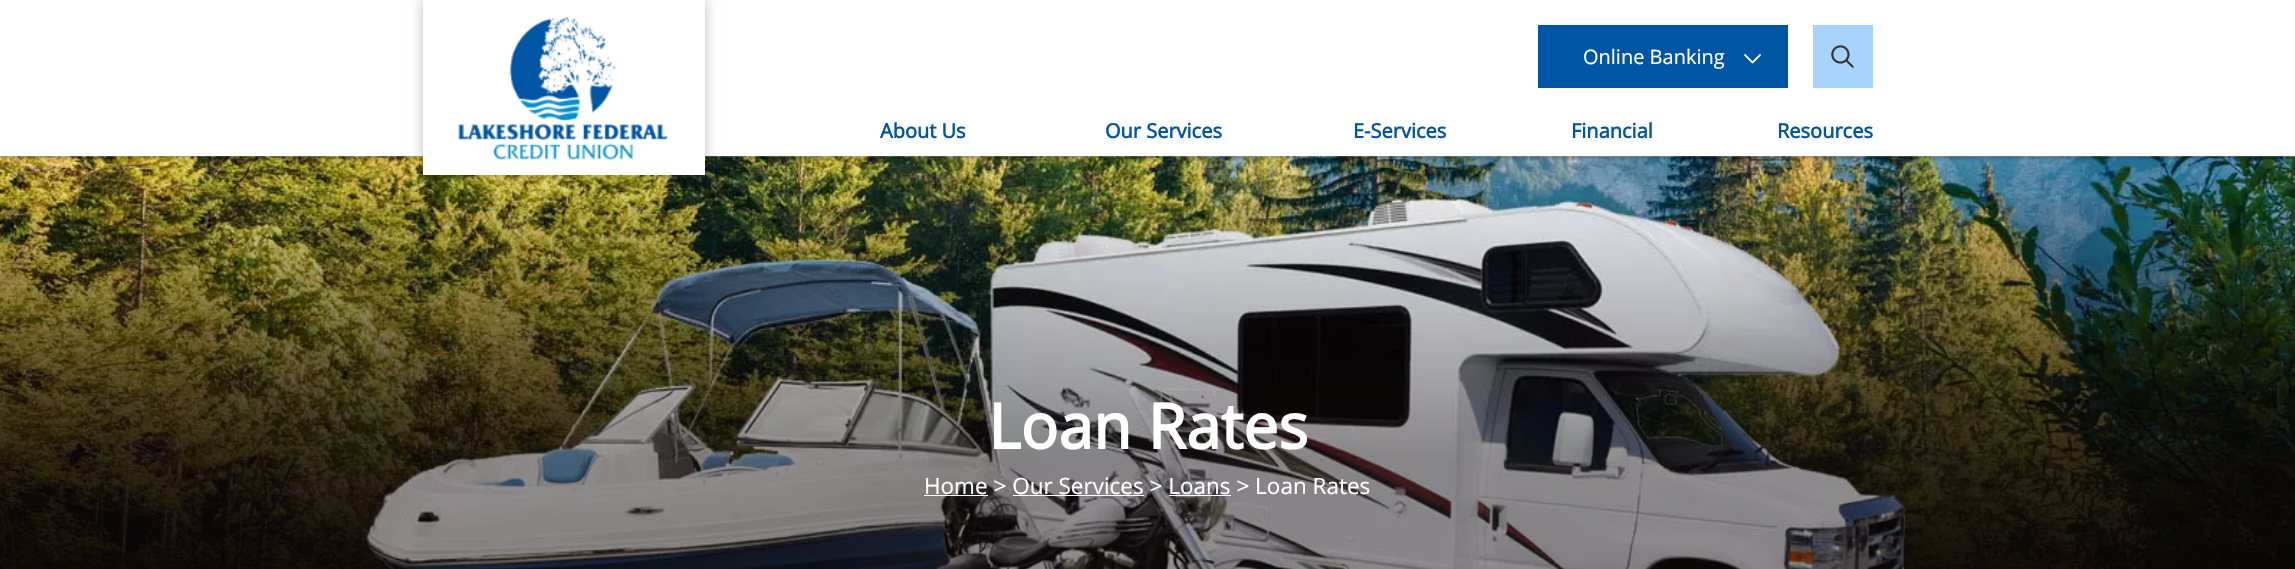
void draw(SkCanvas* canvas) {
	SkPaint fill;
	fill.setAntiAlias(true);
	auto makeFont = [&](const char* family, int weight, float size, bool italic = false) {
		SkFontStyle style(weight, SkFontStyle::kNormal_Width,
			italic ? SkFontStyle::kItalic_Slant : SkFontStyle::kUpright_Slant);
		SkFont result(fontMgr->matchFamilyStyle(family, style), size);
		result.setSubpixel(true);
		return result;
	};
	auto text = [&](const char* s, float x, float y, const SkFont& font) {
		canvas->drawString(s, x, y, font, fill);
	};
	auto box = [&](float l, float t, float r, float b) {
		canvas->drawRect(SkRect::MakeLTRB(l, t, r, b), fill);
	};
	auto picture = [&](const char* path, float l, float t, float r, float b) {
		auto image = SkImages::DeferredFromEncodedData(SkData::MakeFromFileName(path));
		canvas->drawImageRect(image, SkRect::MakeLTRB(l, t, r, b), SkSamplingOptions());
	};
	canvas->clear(0xFFFFFFFF);
	picture("image3.png", 0, 156, 2295, 569);
	canvas->save();
	canvas->clipRect(SkRect::MakeLTRB(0, 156, 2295, 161));
	fill.setColor(0x80000000);
	fill.setMaskFilter(SkMaskFilter::MakeBlur(kNormal_SkBlurStyle, 3));
	canvas->drawRect(SkRect::MakeLTRB(0, 0, 2295, 156), fill);
	fill.setMaskFilter(nullptr);
	canvas->restore();
	fill.setColor(0x40000000);
	fill.setMaskFilter(SkMaskFilter::MakeBlur(kNormal_SkBlurStyle, 6));
	canvas->drawRect(SkRect::MakeLTRB(423, 0, 705, 175), fill);
	fill.setMaskFilter(nullptr);
	fill.setColor(0xFFFFFFFF);
	box(423, 0, 705, 175);
	picture("image0.png", 457, 17, 668, 161);
	fill.setColor(0xFF0055A5);
	box(1538, 25, 1788, 88);
	picture("image1.png", 1744, 54, 1761, 64);
	fill.setColor(0xFFA8D3FC);
	box(1813, 25, 1873, 88);
	picture("image2.png", 1831, 45, 1854, 68);
	{
		const SkColor colors[] = {0x00110909, 0x73110909};
		const float stops[] = {0.05f, 0.53f};
		const SkPoint ends[] = {{1148, 156}, {1148, 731}};
		fill.setShader(SkGradientShader::MakeLinear(ends, colors, stops, 2, SkTileMode::kClamp));
		fill.setAlpha(255);
	}
	box(0, 198, 2295, 569);
	fill.setShader(nullptr);
	fill.setColor(0xFFFFFFFF);
	box(924, 495, 988, 496);
	box(1013, 495, 1144, 496);
	box(1169, 495, 1231, 496);
	auto font1 = makeFont("Open Sans", 400, 20);
	text("Online Banking", 1583, 64, font1);
	auto font2 = makeFont("Open Sans", 700, 20);
	fill.setColor(0xFF0055A5);
	text("About Us", 880, 138, font2);
	text("Our Services", 1105, 138, font2);
	text("E-Services", 1353, 138, font2);
	text("Financial", 1571, 138, font2);
	text("Resources", 1777, 138, font2);
	auto font3 = makeFont("Open Sans", 700, 62.5f);
	fill.setColor(0xFFFFFFFF);
	text("Loan Rates", 988, 449, font3);
	auto font4 = makeFont("Open Sans", 400, 22.5f);
	text("Home > Our Services > Loans > Loan Rates", 924, 494, font4);
}
